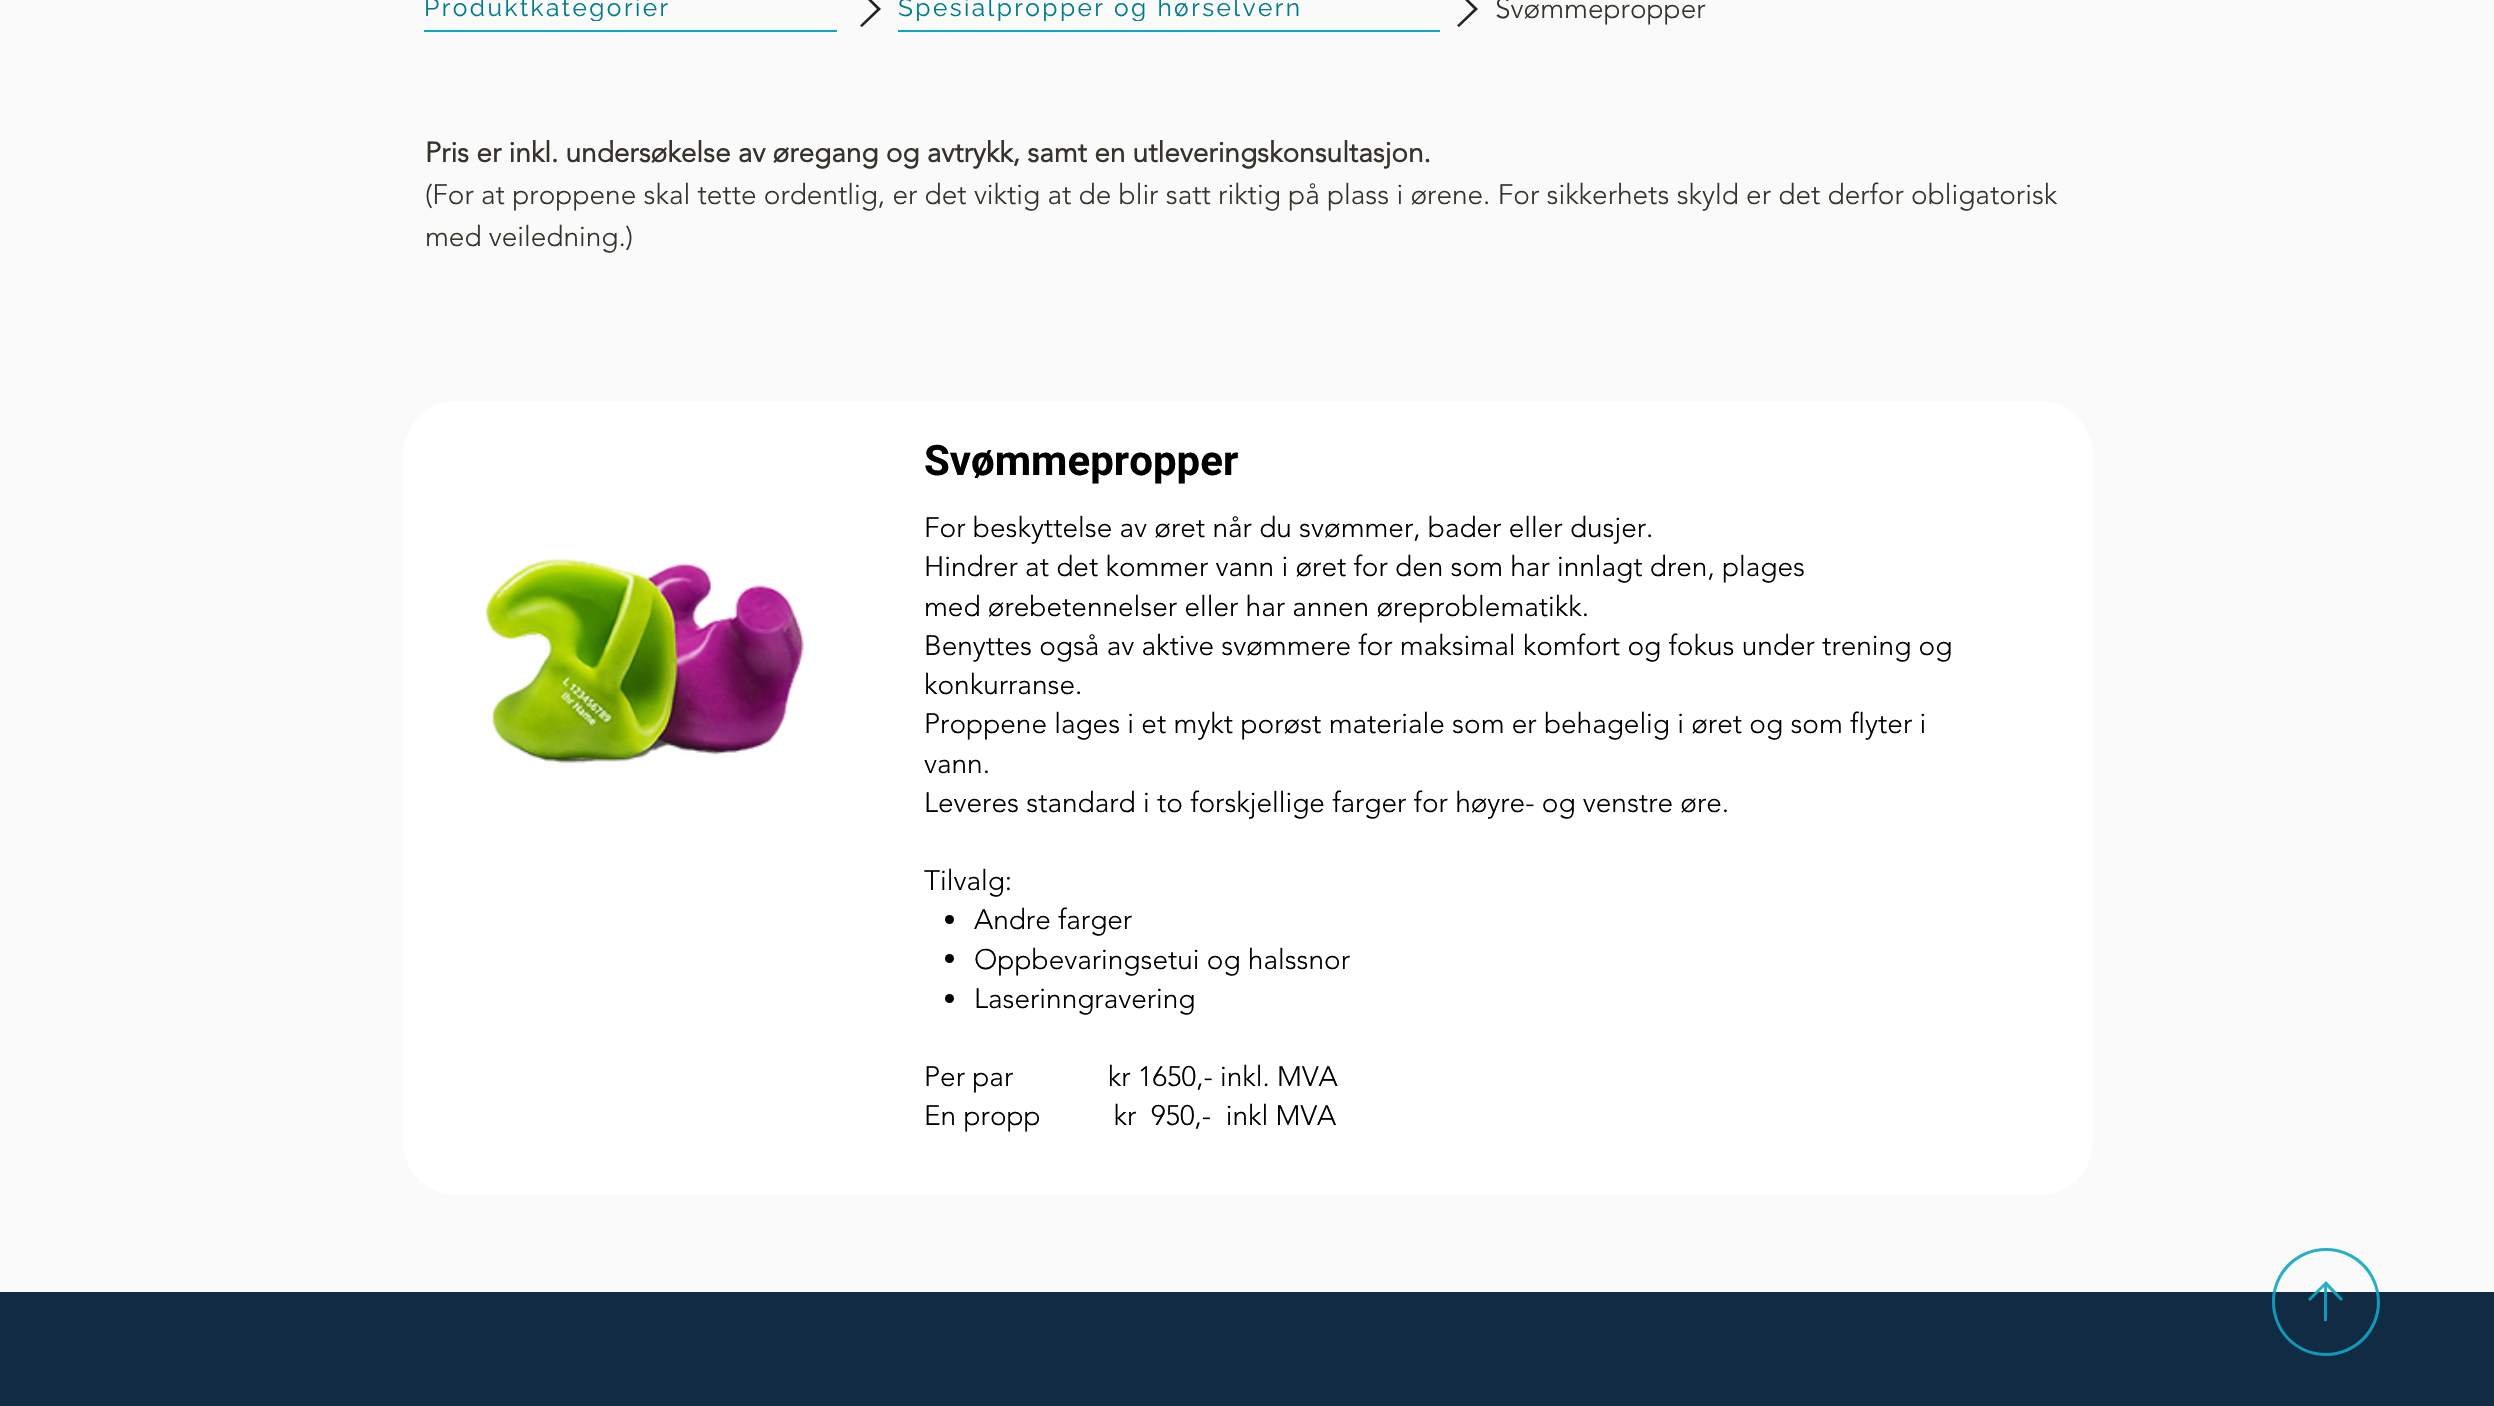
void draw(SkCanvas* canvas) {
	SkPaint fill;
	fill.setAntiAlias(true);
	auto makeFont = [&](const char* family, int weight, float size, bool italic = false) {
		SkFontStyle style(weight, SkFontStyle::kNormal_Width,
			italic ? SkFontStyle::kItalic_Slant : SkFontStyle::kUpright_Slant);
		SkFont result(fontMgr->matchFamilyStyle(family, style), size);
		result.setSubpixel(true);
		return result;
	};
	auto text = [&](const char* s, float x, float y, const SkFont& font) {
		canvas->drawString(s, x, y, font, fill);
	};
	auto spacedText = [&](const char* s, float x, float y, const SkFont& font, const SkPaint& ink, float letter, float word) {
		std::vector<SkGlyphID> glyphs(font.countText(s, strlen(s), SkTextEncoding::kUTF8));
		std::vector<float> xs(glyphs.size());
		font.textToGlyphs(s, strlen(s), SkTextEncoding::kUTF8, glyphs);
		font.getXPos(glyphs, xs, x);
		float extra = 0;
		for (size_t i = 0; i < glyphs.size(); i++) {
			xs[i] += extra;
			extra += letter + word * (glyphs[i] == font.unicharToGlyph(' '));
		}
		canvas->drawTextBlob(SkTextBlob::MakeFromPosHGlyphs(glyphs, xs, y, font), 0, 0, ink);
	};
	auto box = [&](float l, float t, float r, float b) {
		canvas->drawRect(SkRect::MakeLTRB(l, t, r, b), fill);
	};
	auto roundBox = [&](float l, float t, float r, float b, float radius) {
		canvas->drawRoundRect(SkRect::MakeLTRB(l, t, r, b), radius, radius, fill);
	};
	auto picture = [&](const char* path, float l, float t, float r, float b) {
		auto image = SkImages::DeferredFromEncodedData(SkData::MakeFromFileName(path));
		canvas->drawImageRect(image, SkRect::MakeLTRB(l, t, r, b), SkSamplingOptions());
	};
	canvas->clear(0xFFFAFAFA);
	fill.setColor(0xFF0EA5C4);
	box(424, 30, 837, 32);
	fill.setColor(0xFF242323);
	canvas->drawPath(SkPathBuilder().moveTo(862, -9.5f).lineTo(860, -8).lineTo(877, 9).lineTo(860, 25.5f).lineTo(862, 27).lineTo(881, 9).close().detach(), fill);
	fill.setColor(0xFF0EA5C4);
	box(898, 30, 1440, 32);
	fill.setColor(0xFF242323);
	canvas->drawPath(SkPathBuilder().moveTo(1459, -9.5f).lineTo(1457, -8).lineTo(1474, 9).lineTo(1457, 25.5f).lineTo(1459, 27).lineTo(1478, 9).close().detach(), fill);
	fill.setColor(0xFFFFFFFF);
	roundBox(403, 401, 2093, 1195, 53);
	picture("image0.png", 485, 559, 804, 764);
	fill.setColor(0xFF000000);
	canvas->drawCircle(949.5f, 919.5f, 4.5f, fill);
	canvas->drawCircle(949.5f, 958.5f, 4.5f, fill);
	canvas->drawCircle(949.5f, 998.5f, 4.5f, fill);
	fill.setColor(0xFF102B43);
	box(0, 1292, 2494, 1406);
	fill.setColor(0xE60EA5C4);
	canvas->drawPath(SkPathBuilder().moveTo(2326, 1281).lineTo(2343, 1299).lineTo(2341, 1301).lineTo(2327, 1287).lineTo(2327, 1321).lineTo(2324, 1321).lineTo(2324, 1287).lineTo(2310, 1301).lineTo(2308, 1299).close().moveTo(2326, 1248).cubicTo(2296, 1248, 2272, 1272, 2272, 1302).cubicTo(2272, 1332, 2296, 1356, 2326, 1356).cubicTo(2356, 1356, 2380, 1332, 2380, 1302).cubicTo(2380, 1272, 2356, 1248, 2326, 1248).close().moveTo(2326, 1251).cubicTo(2354, 1251, 2377, 1274, 2377, 1302).cubicTo(2377, 1330, 2354, 1353, 2326, 1353).cubicTo(2297, 1353, 2275, 1330, 2275, 1302).cubicTo(2275, 1274, 2298, 1251, 2326, 1251).close().detach(), fill);
	canvas->save();
	canvas->clipRect(SkRect::MakeLTRB(424, 0, 670, 21));
	auto font1 = makeFont("Raleway", 400, 24.5f);
	fill.setColor(0xFF007C8C);
	spacedText("Produktkategorier", 424, 16, font1, fill, 2.45f, 0);
	canvas->restore();
	canvas->save();
	canvas->clipRect(SkRect::MakeLTRB(898, 0, 1302, 21));
	spacedText("Spesialpropper og hørselvern", 898, 16, font1, fill, 2.45f, 0);
	canvas->restore();
	auto font2 = makeFont("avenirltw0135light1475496", 300, 28);
	fill.setColor(0xFF36332B);
	text("Svømmepropper", 1495, 18, font2);
	auto font3 = makeFont("avenirltw0135light1475496", 700, 28);
	text("Pris er inkl. undersøkelse av øregang og avtrykk, samt en utleveringskonsultasjon.", 425, 162, font3);
	text("(For at proppene skal tette ordentlig, er det viktig at de blir satt riktig på plass i ørene. For sikkerhets skyld er det derfor obligatorisk", 425, 204, font2);
	text("med veiledning.)", 425, 246, font2);
	auto font4 = makeFont("Roboto", 700, 42);
	fill.setColor(0xFF000000);
	text("Svømmepropper", 924, 475, font4);
	text("For beskyttelse av øret når du svømmer, bader eller dusjer.", 924, 537, font2);
	text("Hindrer at det kommer vann i øret for den som har innlagt dren, plages", 924, 576, font2);
	text("med ørebetennelser eller har annen øreproblematikk.", 924, 616, font2);
	text("Benyttes også av aktive svømmere for maksimal komfort og fokus under trening og", 924, 655, font2);
	text("konkurranse.", 924, 694, font2);
	text("Proppene lages i et mykt porøst materiale som er behagelig i øret og som flyter i", 924, 733, font2);
	text("vann.", 924, 773, font2);
	text("Leveres standard i to forskjellige farger for høyre- og venstre øre.", 924, 812, font2);
	text("Tilvalg:", 924, 890, font2);
	text("Andre farger", 974, 929, font2);
	text("Oppbevaringsetui og halssnor", 974, 969, font2);
	text("Laserinngravering", 974, 1008, font2);
	text("Per par             kr 1650,- inkl. MVA", 924, 1086, font2);
	text("En propp          kr  950,-  inkl MVA", 924, 1125, font2);
}
